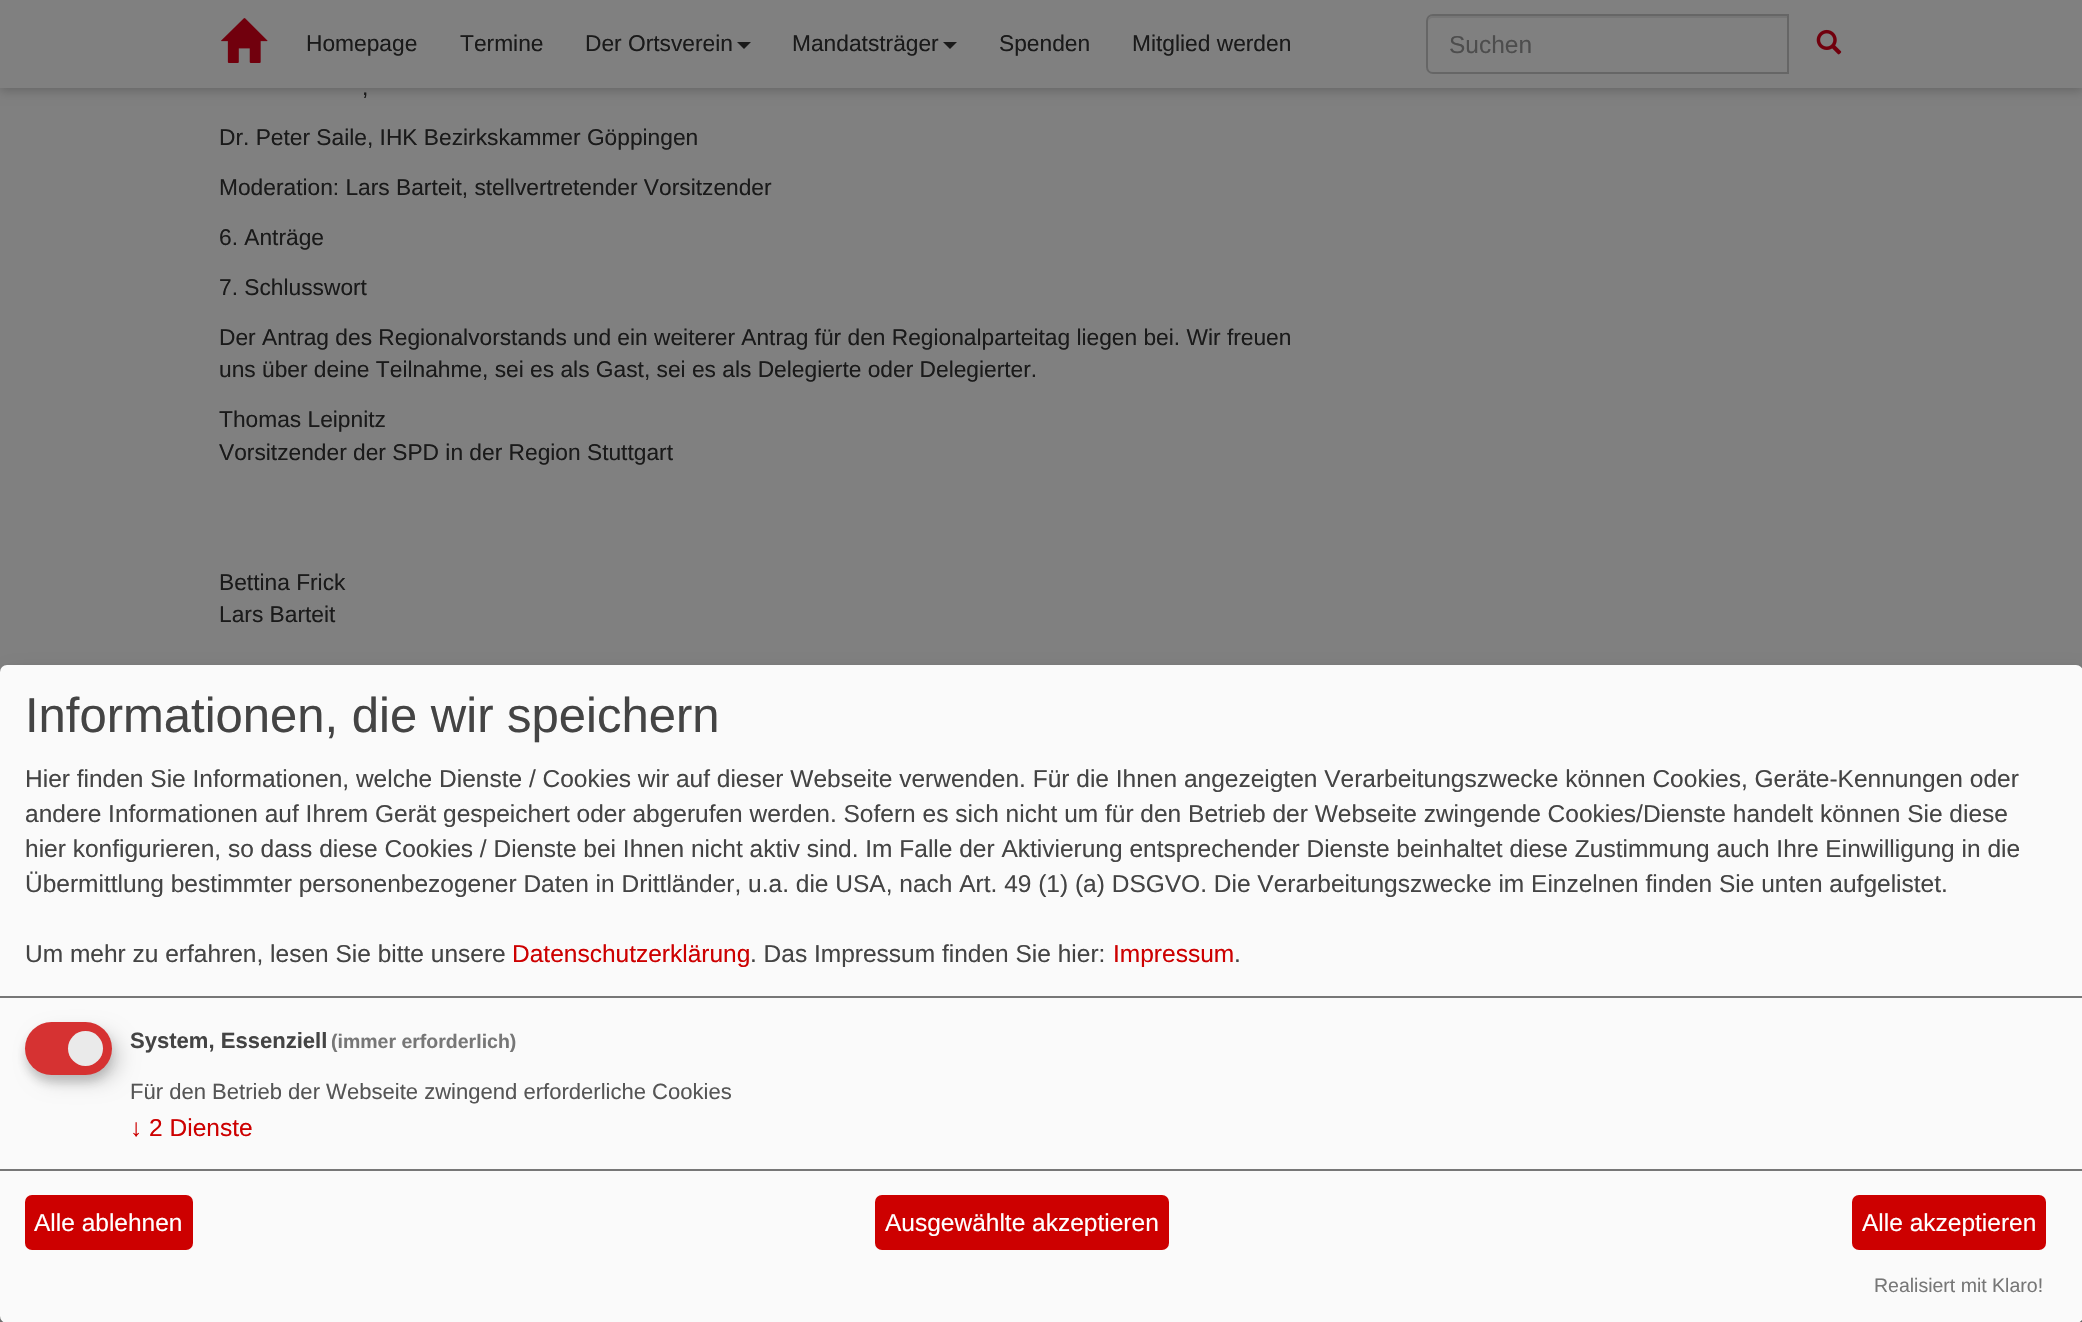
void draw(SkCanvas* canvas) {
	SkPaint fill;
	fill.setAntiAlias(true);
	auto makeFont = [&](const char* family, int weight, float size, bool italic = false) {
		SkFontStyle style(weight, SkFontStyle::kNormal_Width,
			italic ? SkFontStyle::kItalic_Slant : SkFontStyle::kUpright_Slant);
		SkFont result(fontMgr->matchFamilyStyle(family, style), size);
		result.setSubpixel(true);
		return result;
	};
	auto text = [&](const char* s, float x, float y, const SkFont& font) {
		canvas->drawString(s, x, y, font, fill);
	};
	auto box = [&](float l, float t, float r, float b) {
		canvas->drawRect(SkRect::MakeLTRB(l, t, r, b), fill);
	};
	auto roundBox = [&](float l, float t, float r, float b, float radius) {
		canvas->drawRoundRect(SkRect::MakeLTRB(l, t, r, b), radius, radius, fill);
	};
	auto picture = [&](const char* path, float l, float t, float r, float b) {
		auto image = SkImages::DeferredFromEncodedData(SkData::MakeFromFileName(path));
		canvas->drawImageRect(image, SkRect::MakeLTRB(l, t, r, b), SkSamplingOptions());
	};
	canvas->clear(0xFF808080);
	fill.setColor(0x33000000);
	fill.setMaskFilter(SkMaskFilter::MakeBlur(kNormal_SkBlurStyle, 5));
	canvas->drawRect(SkRect::MakeLTRB(0, 4, 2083, 91), fill);
	fill.setMaskFilter(nullptr);
	fill.setColor(0xFF808080);
	box(0, 0, 2082, 88);
	picture("image0.png", 221, 18, 268, 63);
	fill.setColor(0xFF1A1A1A);
	canvas->drawPath(SkPathBuilder().moveTo(737, 42).lineTo(751, 42).lineTo(744, 49).close().detach(), fill);
	canvas->drawPath(SkPathBuilder().moveTo(943, 42).lineTo(957, 42).lineTo(950, 49).close().detach(), fill);
	fill.setColor(0xFF767676);
	canvas->drawPath(SkPathBuilder().moveTo(1433, 18).lineTo(1787, 18).lineTo(1787, 16).lineTo(1433, 16).cubicTo(1429, 16, 1428, 20, 1428, 23).cubicTo(1428, 20, 1430, 18, 1433, 18).close().detach(), fill);
	fill.setStyle(SkPaint::kStroke_Style);
	fill.setStrokeWidth(2);
	fill.setColor(0xFF666666);
	canvas->drawPath(SkPathBuilder().moveTo(1433, 15).lineTo(1788, 15).lineTo(1788, 73).lineTo(1433, 73).cubicTo(1429.5f, 73, 1427, 70.5f, 1427, 67).lineTo(1427, 21).cubicTo(1427, 17.5f, 1429.5f, 15, 1433, 15).close().detach(), fill);
	picture("image1.png", 1816, 29, 1842, 55);
	fill.setStyle(SkPaint::kFill_Style);
	fill.setColor(0x30000000);
	fill.setMaskFilter(SkMaskFilter::MakeBlur(kNormal_SkBlurStyle, 9));
	canvas->drawRoundRect(SkRect::MakeLTRB(9, 674, 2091, 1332), 7, 7, fill);
	fill.setMaskFilter(nullptr);
	fill.setColor(0x33000000);
	fill.setMaskFilter(SkMaskFilter::MakeBlur(kNormal_SkBlurStyle, 5));
	canvas->drawRoundRect(SkRect::MakeLTRB(0, 672, 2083, 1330), 7, 7, fill);
	fill.setMaskFilter(nullptr);
	fill.setColor(0xFFFAFAFA);
	roundBox(0, 665, 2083, 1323, 7);
	fill.setColor(0xFF777777);
	box(0, 996, 2082, 998);
	fill.setColor(0x26000000);
	fill.setMaskFilter(SkMaskFilter::MakeBlur(kNormal_SkBlurStyle, 9));
	canvas->drawRoundRect(SkRect::MakeLTRB(33, 1031, 121, 1083), 26, 26, fill);
	fill.setMaskFilter(nullptr);
	fill.setColor(0x33323232);
	fill.setMaskFilter(SkMaskFilter::MakeBlur(kNormal_SkBlurStyle, 5));
	canvas->drawRoundRect(SkRect::MakeLTRB(25, 1029, 112, 1082), 26.5f, 26.5f, fill);
	fill.setMaskFilter(nullptr);
	fill.setColor(0xFFD63232);
	roundBox(25, 1022, 112, 1075, 26.5f);
	fill.setColor(0xFFEAEAEA);
	canvas->drawCircle(85.5f, 1048.5f, 17.5f, fill);
	fill.setColor(0xFF777777);
	box(0, 1169, 2082, 1171);
	fill.setColor(0xFFCD0000);
	roundBox(25, 1195, 193, 1250, 7);
	roundBox(875, 1195, 1169, 1250, 7);
	roundBox(1852, 1195, 2046, 1250, 7);
	auto font1 = makeFont("Liberation Sans", 400, 22.75f);
	fill.setColor(0xFF1A1A1A);
	text("Homepage", 306, 51, font1);
	text("Termine", 460, 51, font1);
	text("Der Ortsverein", 585, 51, font1);
	text("Mandatsträger", 792, 51, font1);
	text("Spenden", 999, 51, font1);
	text("Mitglied werden", 1132, 51, font1);
	auto font2 = makeFont("Liberation Sans", 400, 24.5f);
	fill.setColor(0xFF4D4D4D);
	text("Suchen", 1449, 53, font2);
	fill.setColor(0xFF1A1A1A);
	text(",", 362, 95, font1);
	text("Dr. Peter Saile, IHK Bezirkskammer Göppingen", 219, 145, font1);
	text("Moderation: Lars Barteit, stellvertretender Vorsitzender", 219, 195, font1);
	text("6. Anträge", 219, 245, font1);
	text("7. Schlusswort", 219, 295, font1);
	text("Der Antrag des Regionalvorstands und ein weiterer Antrag für den Regionalparteitag liegen bei. Wir freuen", 219, 345, font1);
	text("uns über deine Teilnahme, sei es als Gast, sei es als Delegierte oder Delegierter.", 219, 377, font1);
	text("Thomas Leipnitz", 219, 427, font1);
	text("Vorsitzender der SPD in der Region Stuttgart", 219, 460, font1);
	text("Bettina Frick", 219, 590, font1);
	text("Lars Barteit", 219, 622, font1);
	auto font3 = makeFont("Liberation Sans", 400, 49);
	fill.setColor(0xFF444444);
	text("Informationen, die wir speichern", 25, 732, font3);
	text("Hier finden Sie Informationen, welche Dienste / Cookies wir auf dieser Webseite verwenden. Für die Ihnen angezeigten Verarbeitungszwecke können Cookies, Geräte-Kennungen oder", 25, 787, font2);
	text("andere Informationen auf Ihrem Gerät gespeichert oder abgerufen werden. Sofern es sich nicht um für den Betrieb der Webseite zwingende Cookies/Dienste handelt können Sie diese", 25, 822, font2);
	text("hier konfigurieren, so dass diese Cookies / Dienste bei Ihnen nicht aktiv sind. Im Falle der Aktivierung entsprechender Dienste beinhaltet diese Zustimmung auch Ihre Einwilligung in die", 25, 857, font2);
	text("Übermittlung bestimmter personenbezogener Daten in Drittländer, u.a. die USA, nach Art. 49 (1) (a) DSGVO. Die Verarbeitungszwecke im Einzelnen finden Sie unten aufgelistet.", 25, 892, font2);
	text("Um mehr zu erfahren, lesen Sie bitte unsere", 25, 962, font2);
	fill.setColor(0xFFCD0000);
	text("Datenschutzerklärung", 512, 962, font2);
	fill.setColor(0xFF444444);
	text(". Das Impressum finden Sie hier:", 750, 962, font2);
	fill.setColor(0xFFCD0000);
	text("Impressum", 1113, 962, font2);
	fill.setColor(0xFF444444);
	text(".", 1234, 962, font2);
	auto font4 = makeFont("Liberation Sans", 700, 22.05f);
	text("System, Essenziell", 130, 1048, font4);
	auto font5 = makeFont("Liberation Sans", 700, 19.5f);
	fill.setColor(0xFF777777);
	text("(immer erforderlich)", 331, 1048, font5);
	auto font6 = makeFont("Liberation Sans", 400, 22.05f);
	fill.setColor(0xFF555555);
	text("Für den Betrieb der Webseite zwingend erforderliche Cookies", 130, 1099, font6);
	fill.setColor(0xFFCD0000);
	text("↓ 2 Dienste", 130, 1136, font2);
	fill.setColor(0xFFFFFFFF);
	text("Alle ablehnen", 34, 1231, font2);
	text("Ausgewählte akzeptieren", 885, 1231, font2);
	text("Alle akzeptieren", 1862, 1231, font2);
	auto font7 = makeFont("Liberation Sans", 400, 19.5f);
	fill.setColor(0xFF777777);
	text("Realisiert mit Klaro!", 1874, 1292, font7);
}
